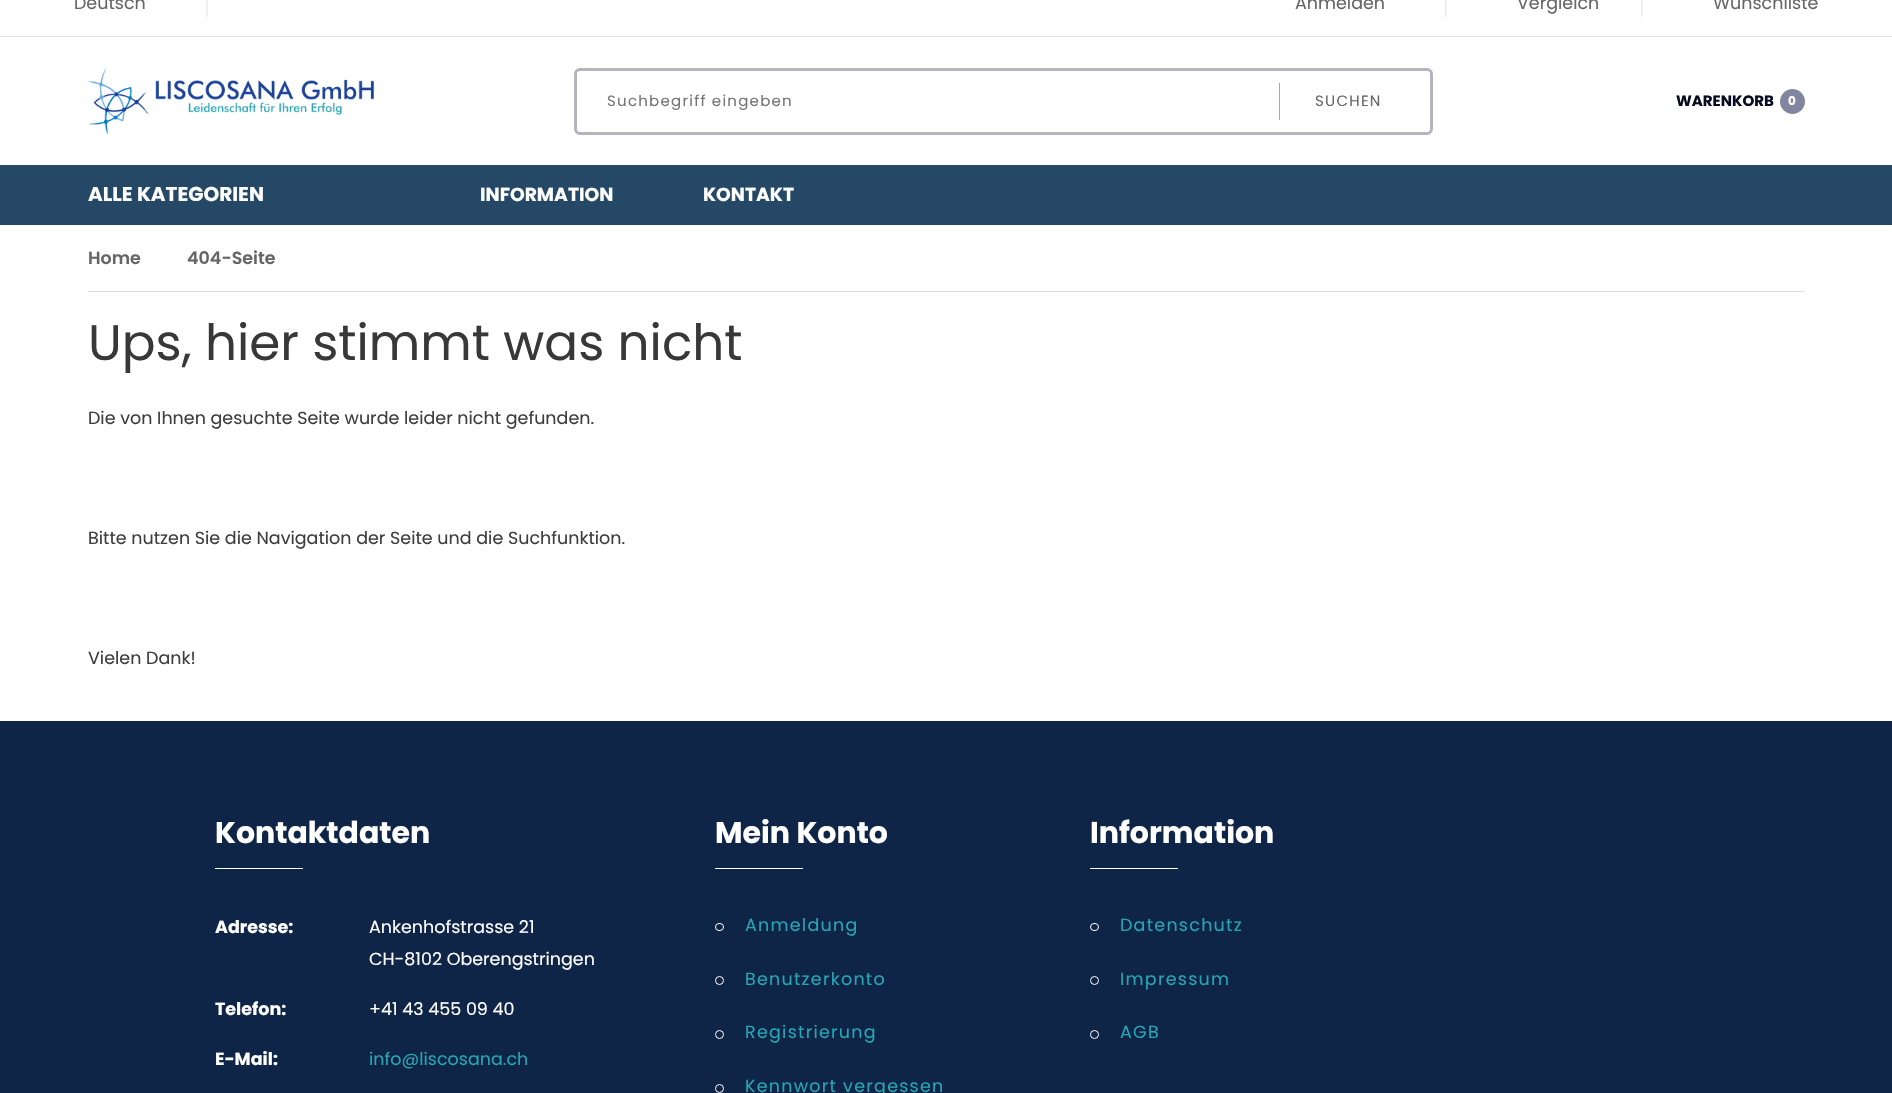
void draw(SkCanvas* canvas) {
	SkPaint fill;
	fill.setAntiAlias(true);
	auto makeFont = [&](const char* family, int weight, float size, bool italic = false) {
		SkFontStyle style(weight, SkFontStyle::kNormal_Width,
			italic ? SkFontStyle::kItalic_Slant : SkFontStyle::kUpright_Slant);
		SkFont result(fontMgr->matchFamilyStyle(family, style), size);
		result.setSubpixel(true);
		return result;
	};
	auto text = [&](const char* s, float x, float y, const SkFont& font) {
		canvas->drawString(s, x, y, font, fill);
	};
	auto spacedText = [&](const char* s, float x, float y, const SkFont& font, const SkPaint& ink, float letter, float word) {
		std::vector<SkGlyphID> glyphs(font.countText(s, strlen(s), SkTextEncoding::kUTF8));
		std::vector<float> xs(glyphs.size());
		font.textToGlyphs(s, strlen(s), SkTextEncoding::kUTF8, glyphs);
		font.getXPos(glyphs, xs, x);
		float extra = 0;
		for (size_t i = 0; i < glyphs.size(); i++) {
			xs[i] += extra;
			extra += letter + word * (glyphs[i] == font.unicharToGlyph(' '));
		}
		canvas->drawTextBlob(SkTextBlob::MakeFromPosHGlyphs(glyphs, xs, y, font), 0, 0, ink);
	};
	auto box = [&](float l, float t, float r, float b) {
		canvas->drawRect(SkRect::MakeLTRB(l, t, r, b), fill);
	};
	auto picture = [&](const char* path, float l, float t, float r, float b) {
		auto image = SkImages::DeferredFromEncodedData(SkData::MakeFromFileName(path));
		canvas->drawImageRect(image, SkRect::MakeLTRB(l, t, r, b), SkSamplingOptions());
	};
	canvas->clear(0xFFFFFFFF);
	fill.setColor(0xFFE7E7E7);
	box(0, 36, 1892, 37);
	picture("image0.png", 206, 0, 208, 17);
	picture("image1.png", 1445, 0, 1447, 17);
	picture("image0.png", 1641, 0, 1643, 17);
	picture("image2.png", 87, 67, 374, 136);
	fill.setStyle(SkPaint::kStroke_Style);
	fill.setStrokeWidth(3);
	fill.setColor(0xFFB4B5BC);
	canvas->drawRoundRect(SkRect::MakeLTRB(575.5f, 69.5f, 1431.5f, 133.5f), 4.5f, 4.5f, fill);
	fill.setStyle(SkPaint::kFill_Style);
	fill.setColor(0xFFA7A7A7);
	box(1279, 83, 1280, 120);
	fill.setColor(0xFF8185A0);
	canvas->drawCircle(1792.5f, 101.5f, 12.5f, fill);
	fill.setColor(0xFF244866);
	box(0, 165, 1892, 225);
	fill.setColor(0xFFDCDCDC);
	box(88, 291, 1805, 292);
	fill.setColor(0xFF0E2547);
	box(0, 721, 1892, 1093);
	fill.setColor(0xFFFFFFFF);
	box(215, 868, 303, 869);
	box(715, 868, 803, 869);
	fill.setStyle(SkPaint::kStroke_Style);
	fill.setStrokeWidth(1);
	canvas->drawRoundRect(SkRect::MakeLTRB(715.5f, 923.5f, 723.5f, 930.5f), 3.5f, 3.5f, fill);
	canvas->drawCircle(719.5f, 980.5f, 4, fill);
	canvas->drawCircle(719.5f, 1034.5f, 4, fill);
	canvas->drawCircle(719.5f, 1088.5f, 4, fill);
	fill.setStyle(SkPaint::kFill_Style);
	box(1090, 868, 1178, 869);
	fill.setStyle(SkPaint::kStroke_Style);
	canvas->drawRoundRect(SkRect::MakeLTRB(1090.5f, 923.5f, 1098.5f, 930.5f), 3.5f, 3.5f, fill);
	canvas->drawCircle(1094.5f, 980.5f, 4, fill);
	canvas->drawCircle(1094.5f, 1034.5f, 4, fill);
	auto font1 = makeFont("Poppins", 400, 17.5f);
	fill.setStyle(SkPaint::kFill_Style);
	fill.setColor(0xFF666666);
	text("Deutsch", 74, 9, font1);
	text("Anmelden", 1295, 9, font1);
	text("Vergleich", 1517, 9, font1);
	text("Wunschliste", 1713, 9, font1);
	auto font2 = makeFont("Poppins", 400, 15);
	fill.setColor(0xFF757575);
	spacedText("Suchbegriff eingeben", 607, 106, font2, fill, 1.25f, 0);
	fill.setColor(0xFF666666);
	spacedText("SUCHEN", 1315, 106, font2, fill, 1.25f, 0);
	auto font3 = makeFont("Poppins", 700, 15);
	fill.setColor(0xFF070B21);
	text("WARENKORB", 1676, 106, font3);
	auto font4 = makeFont("Poppins", 700, 12);
	fill.setColor(0xFFFFFFFF);
	text("0", 1788, 105, font4);
	auto font5 = makeFont("Poppins", 700, 20);
	text("ALLE KATEGORIEN", 88, 201, font5);
	auto font6 = makeFont("Poppins", 700, 18.75f);
	text("INFORMATION", 480, 201, font6);
	text("KONTAKT", 703, 201, font6);
	auto font7 = makeFont("Poppins", 600, 17.5f);
	fill.setColor(0xFF666666);
	text("Home", 88, 264, font7);
	text("404-Seite", 187, 264, font7);
	auto font8 = makeFont("Poppins", 400, 50);
	fill.setColor(0xFF383838);
	text("Ups, hier stimmt was nicht", 88, 360, font8);
	fill.setColor(0xFF3E3E3E);
	text("Die von Ihnen gesuchte Seite wurde leider nicht gefunden.", 88, 424, font1);
	text("Bitte nutzen Sie die Navigation der Seite und die Suchfunktion.", 88, 544, font1);
	text("Vielen Dank!", 88, 664, font1);
	auto font9 = makeFont("Poppins", 700, 30);
	fill.setColor(0xFFFFFFFF);
	text("Kontaktdaten", 215, 843, font9);
	auto font10 = makeFont("Poppins", 700, 17.5f);
	text("Adresse:", 215, 933, font10);
	text("Ankenhofstrasse 21", 369, 933, font1);
	text("CH-8102 Oberengstringen", 369, 965, font1);
	text("Telefon:", 215, 1015, font10);
	text("+41 43 455 09 40", 369, 1015, font1);
	text("E-Mail:", 215, 1065, font10);
	fill.setColor(0xFF28A5B3);
	text("info@liscosana.ch", 369, 1065, font1);
	fill.setColor(0xFFFFFFFF);
	text("Mein Konto", 715, 843, font9);
	fill.setColor(0xFF28A5B3);
	spacedText("Anmeldung", 745, 931, font1, fill, 1.25f, 0);
	spacedText("Benutzerkonto", 745, 985, font1, fill, 1.25f, 0);
	spacedText("Registrierung", 745, 1038, font1, fill, 1.25f, 0);
	spacedText("Kennwort vergessen", 745, 1092, font1, fill, 1.25f, 0);
	fill.setColor(0xFFFFFFFF);
	text("Information", 1090, 843, font9);
	fill.setColor(0xFF28A5B3);
	spacedText("Datenschutz", 1120, 931, font1, fill, 1.25f, 0);
	spacedText("Impressum", 1120, 985, font1, fill, 1.25f, 0);
	spacedText("AGB", 1120, 1038, font1, fill, 1.25f, 0);
}
